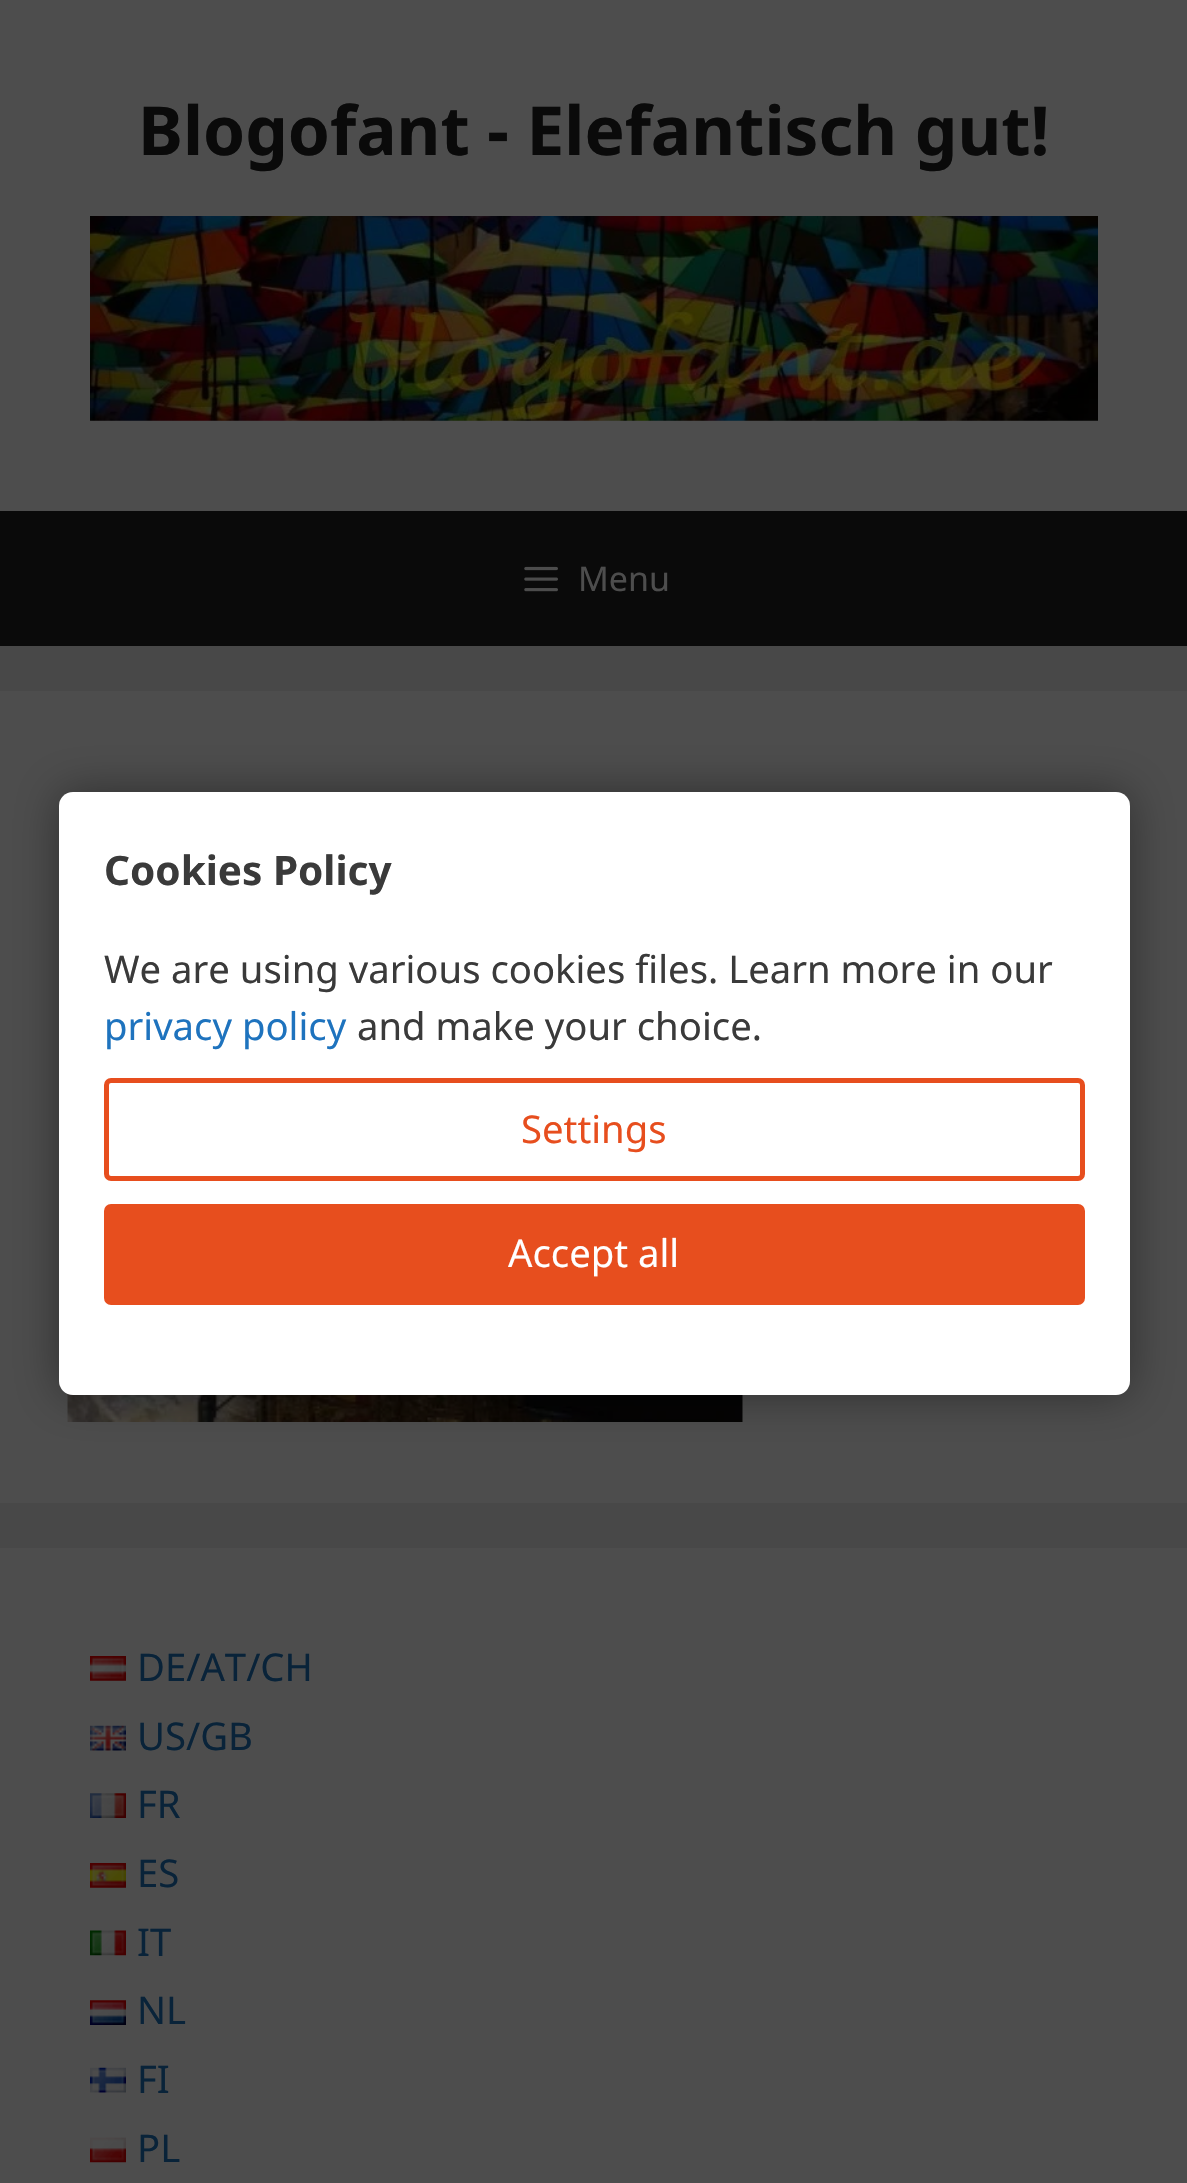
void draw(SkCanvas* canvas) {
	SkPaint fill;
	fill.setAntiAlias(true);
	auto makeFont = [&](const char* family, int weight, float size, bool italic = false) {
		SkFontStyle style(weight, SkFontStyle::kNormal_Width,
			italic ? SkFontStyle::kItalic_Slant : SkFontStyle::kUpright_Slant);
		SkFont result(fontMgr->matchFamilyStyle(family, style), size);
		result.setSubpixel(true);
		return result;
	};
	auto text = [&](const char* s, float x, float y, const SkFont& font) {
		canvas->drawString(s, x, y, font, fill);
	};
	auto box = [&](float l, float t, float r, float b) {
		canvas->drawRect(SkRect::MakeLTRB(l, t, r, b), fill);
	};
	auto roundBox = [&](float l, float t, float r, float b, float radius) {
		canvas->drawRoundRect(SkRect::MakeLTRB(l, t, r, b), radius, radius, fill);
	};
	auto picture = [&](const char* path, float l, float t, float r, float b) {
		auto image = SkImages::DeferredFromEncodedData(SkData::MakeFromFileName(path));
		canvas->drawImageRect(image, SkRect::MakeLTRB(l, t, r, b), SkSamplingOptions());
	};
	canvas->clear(0xFF484848);
	fill.setColor(0xFF4D4D4D);
	box(0, 0, 1187, 511);
	picture("image0.png", 90, 216, 1098, 421);
	fill.setColor(0xFF0A0A0A);
	box(0, 511, 1187, 646);
	picture("image1.png", 524, 566, 558, 592);
	fill.setColor(0xFF4D4D4D);
	box(0, 691, 1187, 1503);
	picture("image2.png", 67, 1393, 743, 1422);
	fill.setColor(0x66000000);
	fill.setMaskFilter(SkMaskFilter::MakeBlur(kNormal_SkBlurStyle, 22.5f));
	canvas->drawRoundRect(SkRect::MakeLTRB(59, 792, 1130, 1395), 14, 14, fill);
	fill.setMaskFilter(nullptr);
	fill.setColor(0xFFFFFFFF);
	roundBox(59, 792, 1130, 1395, 14);
	fill.setStyle(SkPaint::kStroke_Style);
	fill.setStrokeWidth(5);
	fill.setColor(0xFFE74E1E);
	canvas->drawRoundRect(SkRect::MakeLTRB(106.5f, 1080.5f, 1082.5f, 1178.5f), 4.5f, 4.5f, fill);
	fill.setStyle(SkPaint::kFill_Style);
	canvas->drawRoundRect(SkRect::MakeLTRB(106.5f, 1206.5f, 1082.5f, 1302.5f), 4.5f, 4.5f, fill);
	fill.setStyle(SkPaint::kStroke_Style);
	canvas->drawRoundRect(SkRect::MakeLTRB(106.5f, 1206.5f, 1082.5f, 1302.5f), 4.5f, 4.5f, fill);
	fill.setStyle(SkPaint::kFill_Style);
	fill.setColor(0xFF4D4D4D);
	box(0, 1548, 1187, 2183);
	picture("image3.png", 90, 1656, 126, 1681);
	picture("image4.png", 90, 1725, 126, 1751);
	picture("image5.png", 90, 1793, 126, 1818);
	picture("image6.png", 90, 1863, 126, 1888);
	picture("image7.png", 90, 1930, 126, 1956);
	picture("image8.png", 90, 2000, 126, 2025);
	picture("image9.png", 90, 2067, 126, 2093);
	picture("image10.png", 90, 2137, 126, 2163);
	auto font1 = makeFont("Noto Sans", 700, 67.5f);
	fill.setColor(0xFF0A0A0A);
	text("Blogofant - Elefantisch gut!", 138, 155, font1);
	auto font2 = makeFont("Noto Sans", 400, 34);
	fill.setColor(0xFF4D4D4D);
	text("Menu", 578, 591, font2);
	auto font3 = makeFont("Noto Sans", 700, 40.5f);
	fill.setColor(0xFF3A3A3A);
	text("Cookies Policy", 104, 885, font3);
	auto font4 = makeFont("Noto Sans", 400, 38.25f);
	text("We are using various cookies files. Learn more in our", 104, 983, font4);
	fill.setColor(0xFF1E73BE);
	text("privacy policy", 104, 1040, font4);
	fill.setColor(0xFF3A3A3A);
	text("and make your choice.", 357, 1040, font4);
	fill.setColor(0xFFE74E1E);
	text("Settings", 521, 1143, font4);
	fill.setColor(0xFFFFFFFF);
	text("Accept all", 508, 1267, font4);
	fill.setColor(0xFF092339);
	text("DE/AT/CH", 137, 1681, font4);
	text("US/GB", 137, 1750, font4);
	text("FR", 137, 1818, font4);
	text("ES", 137, 1887, font4);
	text("IT", 137, 1956, font4);
	text("NL", 137, 2024, font4);
	text("FI", 137, 2093, font4);
	text("PL", 137, 2162, font4);
}
